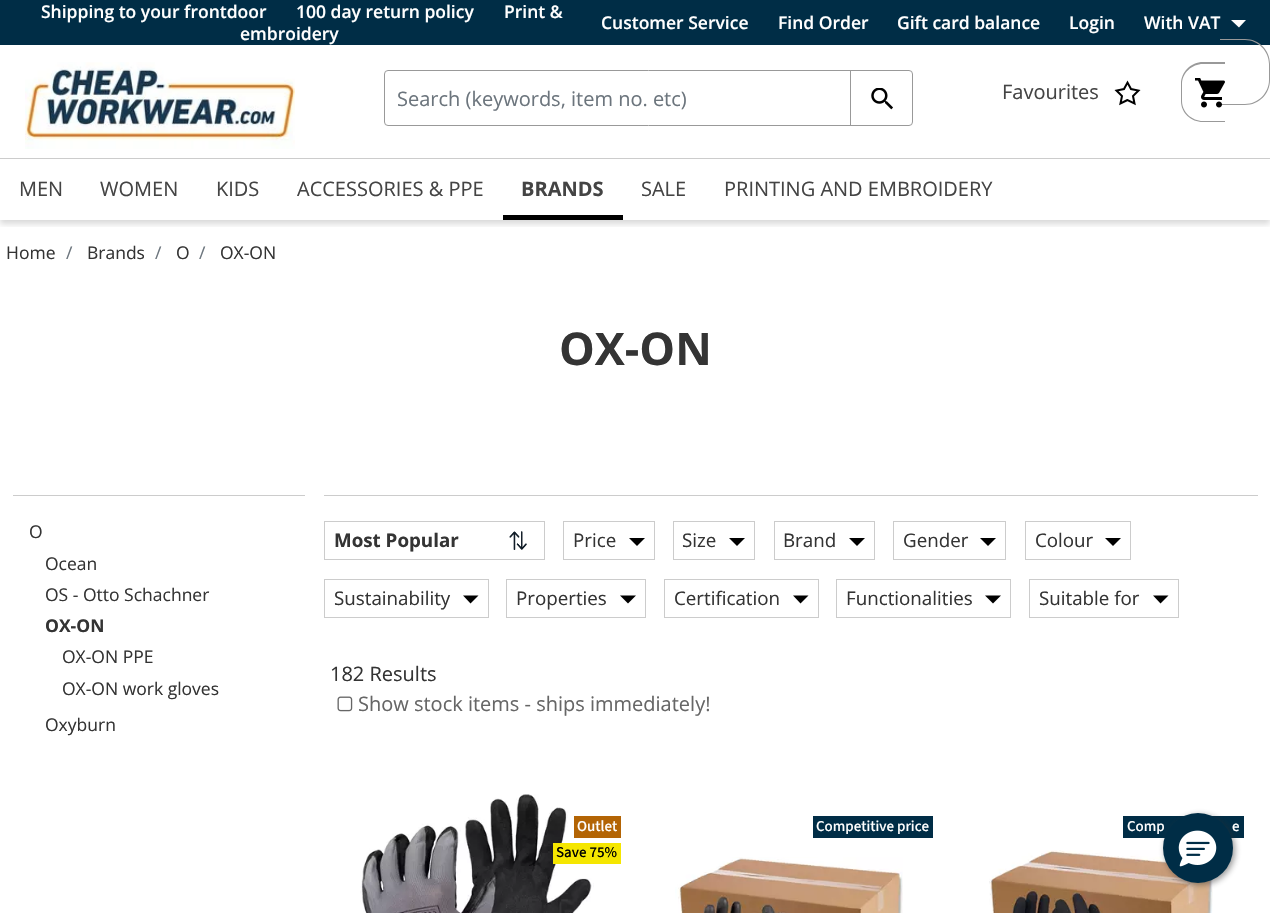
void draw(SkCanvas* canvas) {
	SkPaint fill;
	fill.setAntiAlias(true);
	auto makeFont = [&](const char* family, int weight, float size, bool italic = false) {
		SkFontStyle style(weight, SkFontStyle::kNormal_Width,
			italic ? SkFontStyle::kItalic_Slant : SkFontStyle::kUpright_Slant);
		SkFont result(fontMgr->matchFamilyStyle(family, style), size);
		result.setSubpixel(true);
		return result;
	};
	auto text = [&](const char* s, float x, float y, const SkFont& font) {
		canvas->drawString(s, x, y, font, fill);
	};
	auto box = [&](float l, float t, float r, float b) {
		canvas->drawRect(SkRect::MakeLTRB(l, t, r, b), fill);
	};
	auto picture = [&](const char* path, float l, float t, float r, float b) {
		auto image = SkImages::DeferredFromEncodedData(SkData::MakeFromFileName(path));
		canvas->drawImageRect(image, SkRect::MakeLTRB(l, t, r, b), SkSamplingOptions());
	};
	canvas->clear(0xFFFFFFFF);
	fill.setColor(0xFF002D46);
	box(0, 0, 1270, 45);
	fill.setColor(0xFFFFFFFF);
	canvas->drawPath(SkPathBuilder().moveTo(1231, 20).lineTo(1239, 27.5f).lineTo(1246, 20).detach(), fill);
	picture("image0.png", 25, 62, 295, 149);
	fill.setStyle(SkPaint::kStroke_Style);
	fill.setStrokeWidth(1);
	fill.setColor(0xFF999999);
	canvas->drawRoundRect(SkRect::MakeLTRB(384.5f, 70.5f, 912.5f, 125.5f), 3.5f, 3.5f, fill);
	fill.setStyle(SkPaint::kFill_Style);
	box(850, 70, 851, 126);
	picture("image1.png", 871, 88, 893, 110);
	fill.setStyle(SkPaint::kStroke_Style);
	fill.setStrokeWidth(2);
	fill.setColor(0xFF000000);
	canvas->drawPath(SkPathBuilder().moveTo(1127.5f, 100).lineTo(1120.5f, 103.5f).lineTo(1122, 96).lineTo(1116.5f, 90.5f).lineTo(1124, 89).lineTo(1127.5f, 82.5f).lineTo(1131, 89).lineTo(1138.5f, 90.5f).lineTo(1133, 96).lineTo(1134.5f, 103.5f).close().detach(), fill);
	fill.setStyle(SkPaint::kFill_Style);
	fill.setColor(0xFF999999);
	canvas->drawPath(SkPathBuilder(SkPathFillType::kEvenOdd).moveTo(1203, 62).lineTo(1225, 62).lineTo(1225, 122).lineTo(1203, 122).cubicTo(1191, 122, 1181, 113, 1181, 101).lineTo(1181, 84).cubicTo(1181, 72, 1191, 62, 1203, 62).close().moveTo(1203, 64).lineTo(1225, 64).lineTo(1225, 121).lineTo(1203, 121).cubicTo(1192, 121, 1182, 112, 1182, 101).lineTo(1182, 84).cubicTo(1182, 73, 1192, 64, 1203, 64).close().detach(), fill);
	canvas->drawPath(SkPathBuilder(SkPathFillType::kEvenOdd).moveTo(1220, 39).lineTo(1245, 39).cubicTo(1259, 39, 1270, 50, 1270, 64).lineTo(1270, 80).cubicTo(1270, 94, 1259, 105, 1245, 105).lineTo(1220, 105).close().moveTo(1220, 40).lineTo(1245, 40).cubicTo(1258, 40, 1269, 51, 1269, 64).lineTo(1269, 80).cubicTo(1269, 93, 1258, 104, 1245, 104).lineTo(1220, 104).close().detach(), fill);
	picture("image2.png", 1195, 78, 1225, 108);
	canvas->save();
	canvas->clipRect(SkRect::MakeLTRB(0, 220, 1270, 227));
	fill.setColor(0x26000000);
	fill.setMaskFilter(SkMaskFilter::MakeBlur(kNormal_SkBlurStyle, 3));
	canvas->drawRect(SkRect::MakeLTRB(0, 161, 1270, 224), fill);
	fill.setMaskFilter(nullptr);
	canvas->restore();
	fill.setColor(0xFFCCCCCC);
	box(0, 158, 1270, 159);
	fill.setColor(0xFF000000);
	box(503, 215, 623, 220);
	fill.setColor(0xFFCCCCCC);
	box(13, 495, 305, 496);
	box(324, 495, 1258, 496);
	picture("image3.png", 509, 531, 527, 550);
	fill.setStyle(SkPaint::kStroke_Style);
	fill.setStrokeWidth(1);
	canvas->drawRect(SkRect::MakeLTRB(324.5f, 521.5f, 544.5f, 559.5f), fill);
	canvas->drawRect(SkRect::MakeLTRB(563.5f, 521.5f, 654.5f, 559.5f), fill);
	fill.setStyle(SkPaint::kFill_Style);
	fill.setColor(0xFF000000);
	canvas->drawPath(SkPathBuilder().moveTo(629, 538).lineTo(637, 546).lineTo(645, 538).detach(), fill);
	fill.setStyle(SkPaint::kStroke_Style);
	fill.setColor(0xFFCCCCCC);
	canvas->drawRect(SkRect::MakeLTRB(673.5f, 521.5f, 754.5f, 559.5f), fill);
	fill.setStyle(SkPaint::kFill_Style);
	fill.setColor(0xFF000000);
	canvas->drawPath(SkPathBuilder().moveTo(729, 538).lineTo(737, 546).lineTo(745, 538).detach(), fill);
	fill.setStyle(SkPaint::kStroke_Style);
	fill.setColor(0xFFCCCCCC);
	canvas->drawRect(SkRect::MakeLTRB(774.5f, 521.5f, 874.5f, 559.5f), fill);
	fill.setStyle(SkPaint::kFill_Style);
	fill.setColor(0xFF000000);
	canvas->drawPath(SkPathBuilder().moveTo(849, 538).lineTo(857, 546).lineTo(865, 538).detach(), fill);
	fill.setStyle(SkPaint::kStroke_Style);
	fill.setColor(0xFFCCCCCC);
	canvas->drawRect(SkRect::MakeLTRB(893.5f, 521.5f, 1005.5f, 559.5f), fill);
	fill.setStyle(SkPaint::kFill_Style);
	fill.setColor(0xFF000000);
	canvas->drawPath(SkPathBuilder().moveTo(980, 538).lineTo(988, 546).lineTo(996, 538).detach(), fill);
	fill.setStyle(SkPaint::kStroke_Style);
	fill.setColor(0xFFCCCCCC);
	canvas->drawRect(SkRect::MakeLTRB(1025.5f, 521.5f, 1130.5f, 559.5f), fill);
	fill.setStyle(SkPaint::kFill_Style);
	fill.setColor(0xFF000000);
	canvas->drawPath(SkPathBuilder().moveTo(1105, 538).lineTo(1113, 546).lineTo(1121, 538).detach(), fill);
	fill.setStyle(SkPaint::kStroke_Style);
	fill.setColor(0xFFCCCCCC);
	canvas->drawRect(SkRect::MakeLTRB(324.5f, 579.5f, 488.5f, 617.5f), fill);
	fill.setStyle(SkPaint::kFill_Style);
	fill.setColor(0xFF000000);
	canvas->drawPath(SkPathBuilder().moveTo(463, 595.5f).lineTo(470.5f, 603.5f).lineTo(478.5f, 595.5f).detach(), fill);
	fill.setStyle(SkPaint::kStroke_Style);
	fill.setColor(0xFFCCCCCC);
	canvas->drawRect(SkRect::MakeLTRB(506.5f, 579.5f, 645.5f, 617.5f), fill);
	fill.setStyle(SkPaint::kFill_Style);
	fill.setColor(0xFF000000);
	canvas->drawPath(SkPathBuilder().moveTo(620, 595.5f).lineTo(628, 603.5f).lineTo(636, 595.5f).detach(), fill);
	fill.setStyle(SkPaint::kStroke_Style);
	fill.setColor(0xFFCCCCCC);
	canvas->drawRect(SkRect::MakeLTRB(664.5f, 579.5f, 818.5f, 617.5f), fill);
	fill.setStyle(SkPaint::kFill_Style);
	fill.setColor(0xFF000000);
	canvas->drawPath(SkPathBuilder().moveTo(793, 595.5f).lineTo(800.5f, 603.5f).lineTo(808.5f, 595.5f).detach(), fill);
	fill.setStyle(SkPaint::kStroke_Style);
	fill.setColor(0xFFCCCCCC);
	canvas->drawRect(SkRect::MakeLTRB(836.5f, 579.5f, 1010.5f, 617.5f), fill);
	fill.setStyle(SkPaint::kFill_Style);
	fill.setColor(0xFF000000);
	canvas->drawPath(SkPathBuilder().moveTo(985, 595.5f).lineTo(993, 603.5f).lineTo(1001, 595.5f).detach(), fill);
	fill.setStyle(SkPaint::kStroke_Style);
	fill.setColor(0xFFCCCCCC);
	canvas->drawRect(SkRect::MakeLTRB(1029.5f, 579.5f, 1178.5f, 617.5f), fill);
	fill.setStyle(SkPaint::kFill_Style);
	fill.setColor(0xFF000000);
	canvas->drawPath(SkPathBuilder().moveTo(1153, 595.5f).lineTo(1160.5f, 603.5f).lineTo(1168.5f, 595.5f).detach(), fill);
	picture("image4.png", 337, 696, 353, 712);
	picture("image5.png", 360, 794, 594, 913);
	fill.setColor(0xFFB36404);
	box(574, 816, 621, 838);
	fill.setColor(0xFFF5E600);
	box(553, 843, 621, 864);
	fill.setColor(0xFF002D46);
	box(813, 816, 933, 838);
	picture("image6.png", 675, 857, 903, 913);
	box(1123, 816, 1244, 838);
	picture("image7.png", 989, 850, 1213, 913);
	fill.setColor(0x802D2D2D);
	fill.setMaskFilter(SkMaskFilter::MakeBlur(kNormal_SkBlurStyle, 3));
	canvas->drawRoundRect(SkRect::MakeLTRB(1165, 815, 1235, 885), 35, 35, fill);
	fill.setMaskFilter(nullptr);
	auto font1 = makeFont("Open Sans", 600, 17.5f);
	fill.setColor(0xFFFFFFFF);
	text("Shipping to your frontdoor", 41, 18, font1);
	text("100 day return policy", 296, 18, font1);
	text("Print &", 504, 18, font1);
	text("embroidery", 240, 40, font1);
	text("Customer Service", 601, 29, font1);
	text("Find Order", 778, 29, font1);
	text("Gift card balance", 897, 29, font1);
	text("Login", 1069, 29, font1);
	text("With VAT", 1144, 29, font1);
	auto font2 = makeFont("Open Sans", 400, 20);
	fill.setColor(0xFF6C757D);
	text("Search (keywords, item no. etc)", 397, 106, font2);
	fill.setColor(0xFF444444);
	text("Favourites", 1002, 99, font2);
	text("MEN", 19, 196, font2);
	text("WOMEN", 100, 196, font2);
	text("KIDS", 216, 196, font2);
	text("ACCESSORIES & PPE", 297, 196, font2);
	auto font3 = makeFont("Open Sans", 700, 20);
	text("BRANDS", 521, 196, font3);
	text("SALE", 641, 196, font2);
	text("PRINTING AND EMBROIDERY", 724, 196, font2);
	auto font4 = makeFont("Open Sans", 400, 17.5f);
	fill.setColor(0xFF343434);
	text("Home", 6, 259, font4);
	fill.setColor(0xFF6C757D);
	text("/", 66, 259, font4);
	fill.setColor(0xFF343434);
	text("Brands", 87, 259, font4);
	fill.setColor(0xFF6C757D);
	text("/", 155, 259, font4);
	fill.setColor(0xFF343434);
	text("O", 176, 259, font4);
	fill.setColor(0xFF6C757D);
	text("/", 199, 259, font4);
	fill.setColor(0xFF343434);
	text("OX-ON", 220, 259, font4);
	auto font5 = makeFont("Open Sans", 700, 45);
	text("OX-ON", 559, 365, font5);
	text("O", 29, 538, font4);
	text("Ocean", 45, 570, font4);
	text("OS - Otto Schachner", 45, 601, font4);
	auto font6 = makeFont("Open Sans", 700, 17.5f);
	text("OX-ON", 45, 632, font6);
	text("OX-ON PPE", 62, 663, font4);
	text("OX-ON work gloves", 62, 695, font4);
	text("Oxyburn", 45, 731, font4);
	auto font7 = makeFont("Open Sans", 700, 18.75f);
	text("Most Popular", 334, 547, font7);
	auto font8 = makeFont("Open Sans", 400, 18.75f);
	text("Price", 573, 547, font8);
	text("Size", 682, 547, font8);
	text("Brand", 783, 547, font8);
	text("Gender", 903, 547, font8);
	text("Colour", 1035, 547, font8);
	text("Sustainability", 334, 605, font8);
	text("Properties", 516, 605, font8);
	text("Certification", 674, 605, font8);
	text("Functionalities", 846, 605, font8);
	text("Suitable for", 1039, 605, font8);
	text("182 Results", 330, 681, font2);
	fill.setColor(0xFF666666);
	text("Show stock items - ships immediately!", 358, 711, font2);
	auto font9 = makeFont("Source Sans 3", 200, 15);
	fill.setColor(0xFFFFFFFF);
	text("Outlet", 577, 831, font9);
	fill.setColor(0xFF000000);
	text("Save 75%", 556, 857, font9);
	fill.setColor(0xFFFFFFFF);
	text("Competitive price", 816, 831, font9);
	text("Comp", 1127, 831, font9);
	text("e", 1232, 831, font9);
	fill.setColor(0xFF002D46);
	canvas->drawCircle(1198, 848, 35, fill);
	picture("image8.png", 1178, 830, 1217, 867);
}
